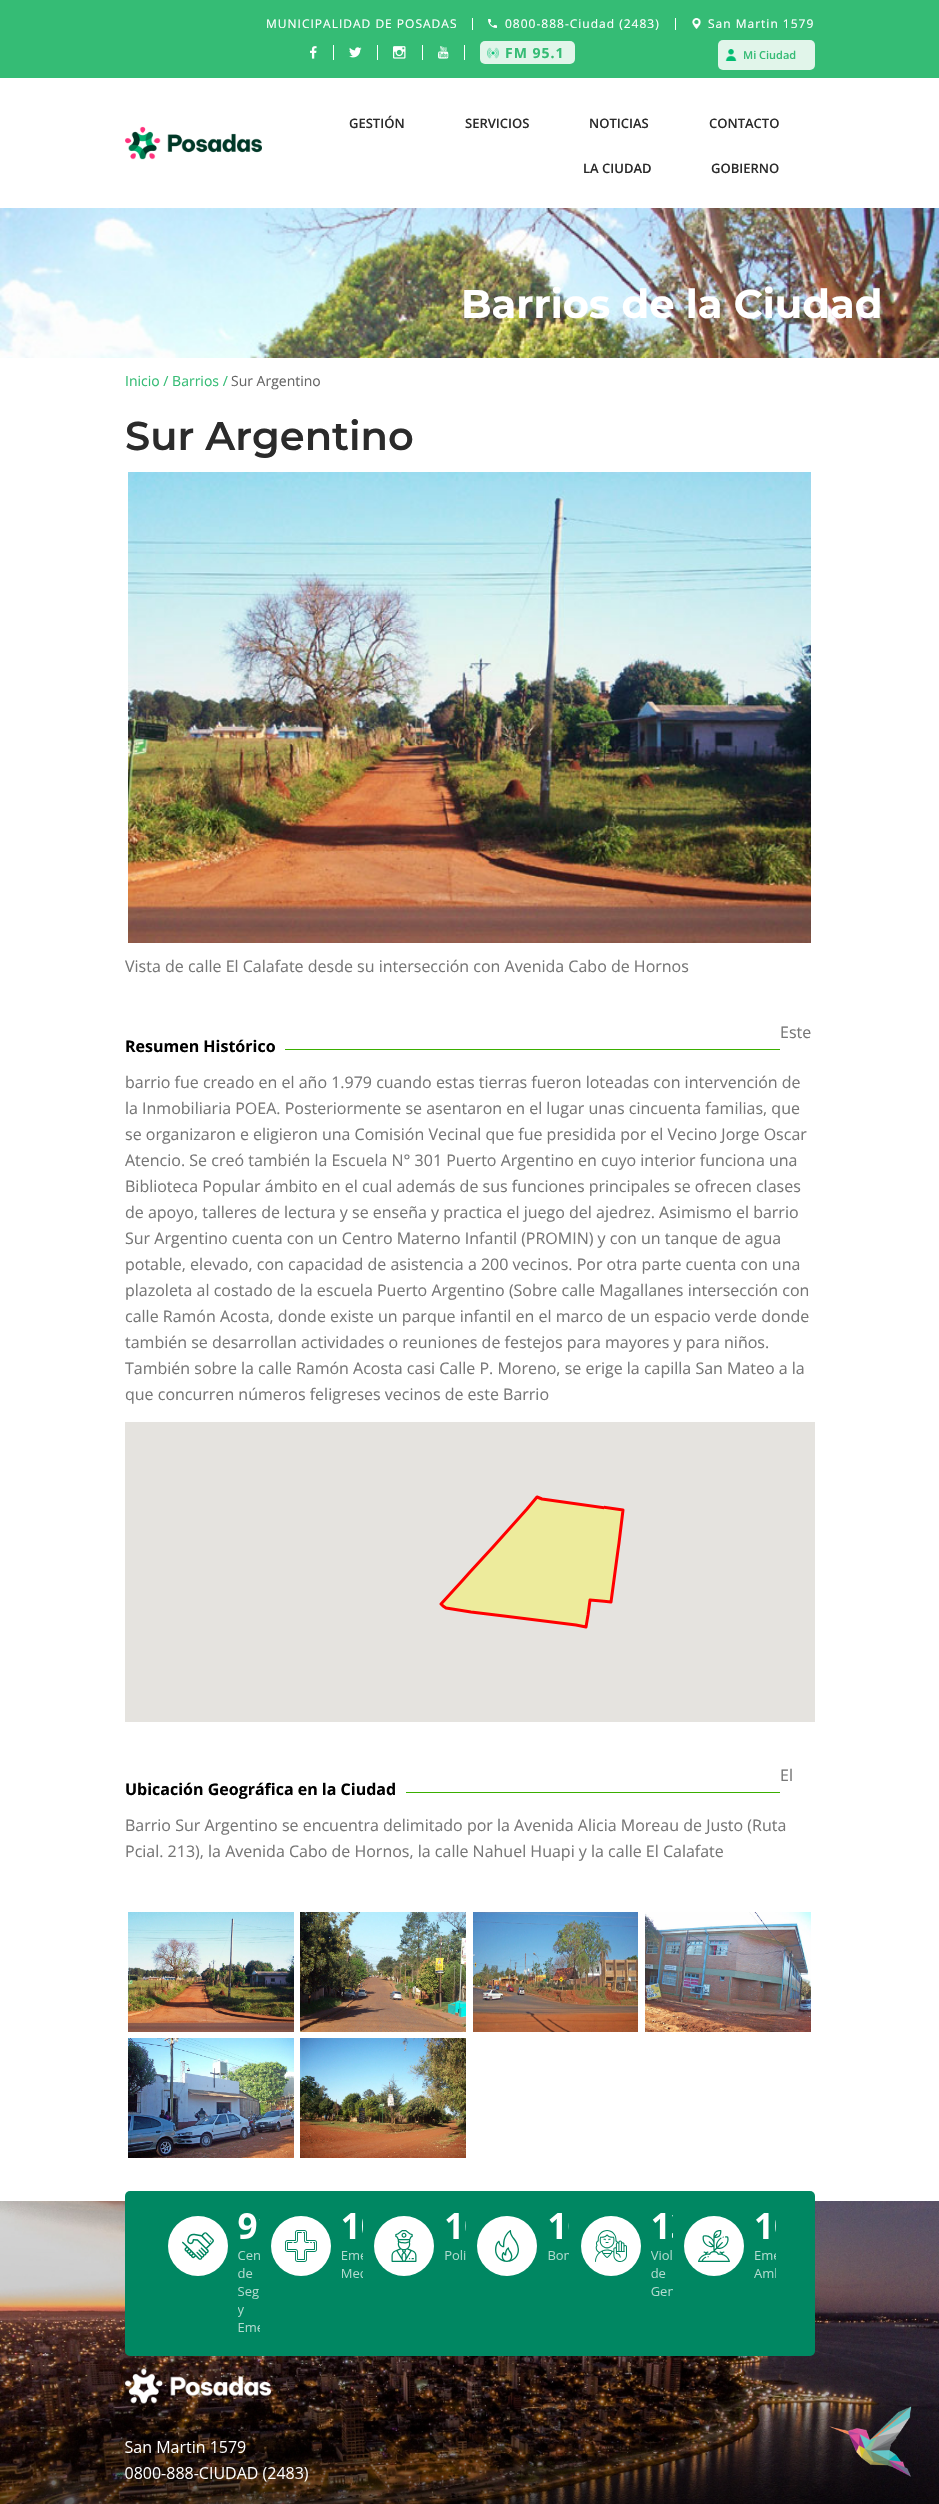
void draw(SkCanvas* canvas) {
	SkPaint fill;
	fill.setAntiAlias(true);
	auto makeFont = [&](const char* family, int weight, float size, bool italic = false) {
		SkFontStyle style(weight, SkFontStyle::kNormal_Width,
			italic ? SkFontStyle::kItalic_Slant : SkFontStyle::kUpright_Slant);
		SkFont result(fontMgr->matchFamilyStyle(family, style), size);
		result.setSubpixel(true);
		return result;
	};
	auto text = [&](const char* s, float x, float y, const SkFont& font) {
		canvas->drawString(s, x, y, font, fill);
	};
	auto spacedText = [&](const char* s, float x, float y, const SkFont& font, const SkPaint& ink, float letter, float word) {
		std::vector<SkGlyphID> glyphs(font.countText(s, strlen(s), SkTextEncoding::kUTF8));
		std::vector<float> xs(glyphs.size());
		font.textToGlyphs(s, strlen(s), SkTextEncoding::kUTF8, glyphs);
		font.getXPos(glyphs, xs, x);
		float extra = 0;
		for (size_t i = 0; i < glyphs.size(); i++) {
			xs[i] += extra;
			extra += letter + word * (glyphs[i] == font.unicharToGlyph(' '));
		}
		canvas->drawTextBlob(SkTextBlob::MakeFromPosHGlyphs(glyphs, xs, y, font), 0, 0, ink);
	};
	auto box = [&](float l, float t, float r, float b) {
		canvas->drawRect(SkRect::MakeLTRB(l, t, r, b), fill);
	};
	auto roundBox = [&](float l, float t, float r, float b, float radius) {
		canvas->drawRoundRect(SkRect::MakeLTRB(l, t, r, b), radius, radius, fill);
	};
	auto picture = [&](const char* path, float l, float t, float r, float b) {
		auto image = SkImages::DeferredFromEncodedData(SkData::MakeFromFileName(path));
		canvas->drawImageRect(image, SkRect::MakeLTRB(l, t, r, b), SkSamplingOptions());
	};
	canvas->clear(0xFFFFFFFF);
	fill.setColor(0xFF35BC75);
	box(0, 0, 939, 78);
	fill.setColor(0xFFFFFFFF);
	box(472, 18, 473, 30);
	box(675, 18, 676, 30);
	picture("image0.png", 488, 19, 497, 28);
	picture("image1.png", 692, 18, 701, 29);
	box(333, 45, 334, 60);
	picture("image2.png", 310, 46, 317, 59);
	box(377, 45, 378, 60);
	picture("image3.png", 349, 47, 362, 58);
	box(422, 45, 423, 60);
	picture("image4.png", 393, 46, 406, 59);
	box(464, 45, 465, 60);
	picture("image5.png", 438, 46, 449, 59);
	fill.setColor(0xFFE1F5EA);
	roundBox(480, 41, 575, 64, 5);
	picture("image6.png", 487, 47, 499, 59);
	roundBox(718, 40, 815, 70, 5);
	picture("image7.png", 725, 49, 737, 61);
	picture("image8.png", 125, 126, 262, 160);
	picture("image21.png", 0, 2191, 939, 2504);
	picture("image9.png", 829, 2406, 912, 2477);
	picture("image10.png", 0, 208, 939, 358);
	picture("image11.png", 128, 472, 811, 943);
	fill.setColor(0xFF3AAF00);
	box(285, 1049, 780, 1050);
	fill.setColor(0xFFE5E3DF);
	box(125, 1422, 815, 1722);
	picture("image12.png", 439, 1495, 604, 1624);
	picture("image13.png", 604, 1505, 625, 1604);
	picture("image14.png", 556, 1624, 588, 1629);
	fill.setColor(0xFF3AAF00);
	box(406, 1792, 780, 1793);
	picture("image15.png", 128, 1912, 294, 2032);
	picture("image16.png", 300, 1912, 466, 2032);
	picture("image17.png", 473, 1912, 638, 2032);
	picture("image18.png", 645, 1912, 811, 2032);
	picture("image19.png", 128, 2038, 294, 2158);
	picture("image20.png", 300, 2038, 466, 2158);
	auto font1 = makeFont("Open Sans", 400, 12);
	fill.setColor(0xFFFFFFFF);
	spacedText("MUNICIPALIDAD DE POSADAS", 266, 28, font1, fill, 1, 0);
	spacedText("0800-888-Ciudad (2483)", 505, 28, font1, fill, 1, 0);
	spacedText("San Martin 1579", 708, 28, font1, fill, 1, 0);
	auto font2 = makeFont("Open Sans", 700, 14);
	fill.setColor(0xFF35BC75);
	spacedText("FM 95.1", 505, 58, font2, fill, 1, 0);
	auto font3 = makeFont("Open Sans", 600, 11);
	text("Mi Ciudad", 743, 59, font3);
	auto font4 = makeFont("Open Sans", 600, 13);
	fill.setColor(0xFF2B2B2B);
	text("GESTIÓN", 349, 128, font4);
	text("SERVICIOS", 465, 128, font4);
	text("NOTICIAS", 589, 128, font4);
	text("CONTACTO", 709, 128, font4);
	text("LA CIUDAD", 583, 173, font4);
	text("GOBIERNO", 711, 173, font4);
	auto font5 = makeFont("Montserrat", 700, 40);
	fill.setColor(0xFFFFFFFF);
	text("Barrios de la Ciudad", 461, 318, font5);
	auto font6 = makeFont("Open Sans", 400, 14);
	fill.setColor(0xFF35BC75);
	text("Inicio / Barrios /", 125, 386, font6);
	fill.setColor(0xFF666666);
	text("Sur Argentino", 231, 386, font6);
	auto font7 = makeFont("Montserrat", 600, 40);
	fill.setColor(0xFF2B2B2B);
	text("Sur Argentino", 125, 450, font7);
	auto font8 = makeFont("Open Sans", 400, 16);
	fill.setColor(0xFF777777);
	text("Vista de calle El Calafate desde su intersección con Avenida Cabo de Hornos", 125, 972, font8);
	text("Este", 780, 1038, font8);
	text("barrio fue creado en el año 1.979 cuando estas tierras fueron loteadas con intervención de", 125, 1088, font8);
	text("la Inmobiliaria POEA. Posteriormente se asentaron en el lugar unas cincuenta familias, que", 125, 1114, font8);
	text("se organizaron e eligieron una Comisión Vecinal que fue presidida por el Vecino Jorge Oscar", 125, 1140, font8);
	text("Atencio. Se creó también la Escuela N° 301 Puerto Argentino en cuyo interior funciona una", 125, 1166, font8);
	text("Biblioteca Popular ámbito en el cual además de sus funciones principales se ofrecen clases", 125, 1192, font8);
	text("de apoyo, talleres de lectura y se enseña y practica el juego del ajedrez. Asimismo el barrio", 125, 1218, font8);
	text("Sur Argentino cuenta con un Centro Materno Infantil (PROMIN) y con un tanque de agua", 125, 1244, font8);
	text("potable, elevado, con capacidad de asistencia a 200 vecinos. Por otra parte cuenta con una", 125, 1270, font8);
	text("plazoleta al costado de la escuela Puerto Argentino (Sobre calle Magallanes intersección con", 125, 1296, font8);
	text("calle Ramón Acosta, donde existe un parque infantil en el marco de un espacio verde donde", 125, 1322, font8);
	text("también se desarrollan actividades o reuniones de festejos para mayores y para niños.", 125, 1348, font8);
	text("También sobre la calle Ramón Acosta casi Calle P. Moreno, se erige la capilla San Mateo a la", 125, 1374, font8);
	text("que concurren números feligreses vecinos de este Barrio", 125, 1400, font8);
	auto font9 = makeFont("Open Sans", 700, 16);
	fill.setColor(0xFF000000);
	text("Resumen Histórico", 125, 1052, font9);
	fill.setColor(0xFF777777);
	text("El", 780, 1781, font8);
	text("Barrio Sur Argentino se encuentra delimitado por la Avenida Alicia Moreau de Justo (Ruta", 125, 1831, font8);
	text("Pcial. 213), la Avenida Cabo de Hornos, la calle Nahuel Huapi y la calle El Calafate", 125, 1857, font8);
	fill.setColor(0xFF000000);
	text("Ubicación Geográfica en la Ciudad", 125, 1795, font9);
}
